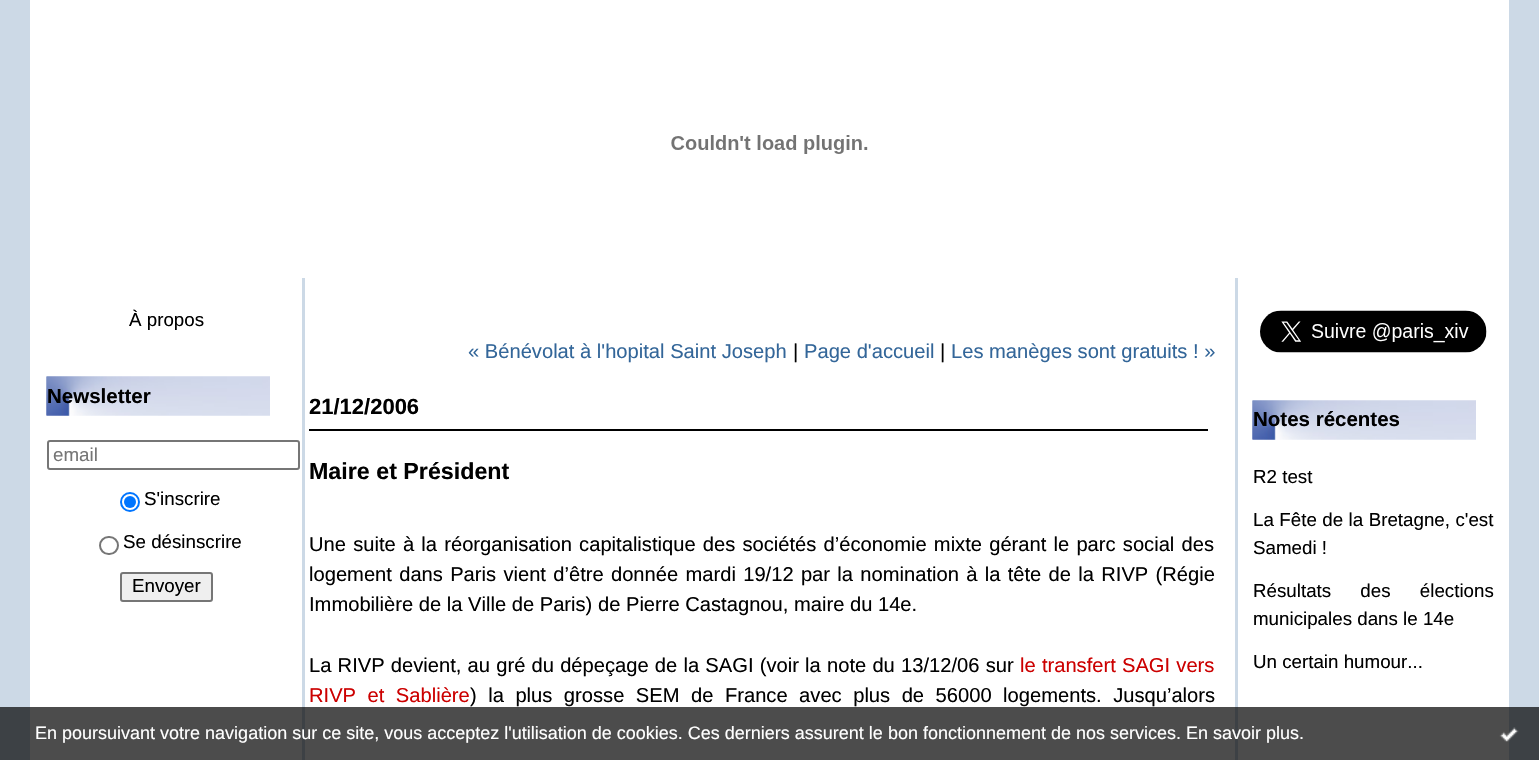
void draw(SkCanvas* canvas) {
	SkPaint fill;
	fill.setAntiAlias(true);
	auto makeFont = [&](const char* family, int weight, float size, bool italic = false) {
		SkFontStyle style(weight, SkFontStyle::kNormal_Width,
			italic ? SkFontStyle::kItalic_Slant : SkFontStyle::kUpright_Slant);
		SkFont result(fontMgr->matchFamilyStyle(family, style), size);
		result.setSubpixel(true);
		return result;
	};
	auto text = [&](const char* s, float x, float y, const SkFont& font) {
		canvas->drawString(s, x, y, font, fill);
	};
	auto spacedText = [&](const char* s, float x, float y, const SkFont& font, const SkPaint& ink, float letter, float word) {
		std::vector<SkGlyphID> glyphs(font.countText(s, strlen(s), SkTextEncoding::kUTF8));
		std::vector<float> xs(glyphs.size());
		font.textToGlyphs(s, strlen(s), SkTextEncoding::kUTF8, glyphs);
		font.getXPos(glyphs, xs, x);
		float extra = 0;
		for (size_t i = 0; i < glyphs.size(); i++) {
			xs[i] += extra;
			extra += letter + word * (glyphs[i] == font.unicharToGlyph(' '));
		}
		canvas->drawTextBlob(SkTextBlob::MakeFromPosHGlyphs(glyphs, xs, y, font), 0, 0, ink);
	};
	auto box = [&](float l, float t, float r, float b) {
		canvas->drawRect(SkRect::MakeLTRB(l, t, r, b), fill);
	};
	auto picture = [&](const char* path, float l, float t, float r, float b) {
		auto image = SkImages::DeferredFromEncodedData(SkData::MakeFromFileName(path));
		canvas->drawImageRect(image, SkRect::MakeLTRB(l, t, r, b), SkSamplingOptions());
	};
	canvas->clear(0xFFCCD9E6);
	fill.setColor(0xFFFFFFFF);
	box(30, 0, 1509, 760);
	picture("image0.png", 671, 135, 868, 154);
	fill.setColor(0xFFCCD9E6);
	box(302, 278, 305, 760);
	picture("image1.png", 46, 376, 270, 416);
	picture("image2.png", 46, 376, 270, 416);
	fill.setStyle(SkPaint::kStroke_Style);
	fill.setStrokeWidth(2);
	fill.setColor(0xFF767676);
	canvas->drawRoundRect(SkRect::MakeLTRB(48, 441, 299, 469), 2, 2, fill);
	fill.setColor(0xFF0075FF);
	canvas->drawCircle(130, 502, 9, fill);
	fill.setStyle(SkPaint::kFill_Style);
	canvas->drawCircle(130, 502, 6, fill);
	fill.setStyle(SkPaint::kStroke_Style);
	fill.setColor(0xFF767676);
	canvas->drawRoundRect(SkRect::MakeLTRB(100, 537, 118, 554), 8.5f, 8.5f, fill);
	fill.setStyle(SkPaint::kFill_Style);
	fill.setColor(0xFFEFEFEF);
	canvas->drawRoundRect(SkRect::MakeLTRB(121, 573, 212, 601), 2, 2, fill);
	fill.setStyle(SkPaint::kStroke_Style);
	fill.setColor(0xFF767676);
	canvas->drawRoundRect(SkRect::MakeLTRB(121, 573, 212, 601), 2, 2, fill);
	fill.setStyle(SkPaint::kFill_Style);
	fill.setColor(0xFF000000);
	box(309, 429, 1208, 431);
	fill.setColor(0xFFCCD9E6);
	box(1235, 278, 1238, 760);
	picture("image3.png", 1260, 310, 1487, 353);
	picture("image4.png", 1252, 400, 1476, 440);
	picture("image5.png", 1252, 400, 1476, 440);
	fill.setColor(0xB3000000);
	box(0, 707, 1539, 760);
	picture("image6.png", 1499, 727, 1519, 742);
	auto font1 = makeFont("Liberation Sans", 400, 18.75f);
	fill.setColor(0xFF000000);
	text("À propos", 129, 326, font1);
	auto font2 = makeFont("Liberation Sans", 700, 20.5f);
	text("Newsletter", 47, 403, font2);
	fill.setColor(0xFF757575);
	text("email", 53, 461, font1);
	fill.setColor(0xFF000000);
	text("S'inscrire", 144, 505, font1);
	text("Se désinscrire", 123, 548, font1);
	text("Envoyer", 132, 592, font1);
	auto font3 = makeFont("Liberation Sans", 400, 20.15f);
	fill.setColor(0xFF336699);
	text("« Bénévolat à l'hopital Saint Joseph", 468, 358, font3);
	fill.setColor(0xFF000000);
	text("|", 793, 358, font3);
	fill.setColor(0xFF336699);
	text("Page d'accueil", 804, 358, font3);
	fill.setColor(0xFF000000);
	text("|", 940, 358, font3);
	fill.setColor(0xFF336699);
	text("Les manèges sont gratuits ! »", 951, 358, font3);
	auto font4 = makeFont("Liberation Sans", 700, 22);
	fill.setColor(0xFF000000);
	text("21/12/2006", 309, 414, font4);
	auto font5 = makeFont("Liberation Sans", 700, 23.25f);
	text("Maire et Président", 309, 479, font5);
	spacedText("Une suite à la réorganisation capitalistique des sociétés d’économie mixte gérant le parc social des", 309, 551, font3, fill, 0, 1.6f);
	spacedText("logement dans Paris vient d’être donnée mardi 19/12 par la nomination à la tête de la RIVP (Régie", 309, 581, font3, fill, 0, 1.7f);
	text("Immobilière de la Ville de Paris) de Pierre Castagnou, maire du 14e.", 309, 611, font3);
	spacedText("La RIVP devient, au gré du dépeçage de la SAGI (voir la note du 13/12/06 sur", 309, 672, font3, fill, 0, 0.6f);
	fill.setColor(0xFFCC0000);
	spacedText("le transfert SAGI vers", 1020, 672, font3, fill, 0, 0.6f);
	spacedText("RIVP et Sablière", 309, 702, font3, fill, 0, 5.9f);
	fill.setColor(0xFF000000);
	spacedText(") la plus grosse SEM de France avec plus de 56000 logements. Jusqu’alors", 470, 702, font3, fill, 0, 5.9f);
	text("Notes récentes", 1253, 426, font2);
	text("R2 test", 1253, 483, font1);
	spacedText("La Fête de la Bretagne, c'est", 1253, 526, font1, fill, 0, 0.25f);
	text("Samedi !", 1253, 554, font1);
	spacedText("Résultats des élections", 1253, 597, font1, fill, 0, 24);
	text("municipales dans le 14e", 1253, 625, font1);
	text("Un certain humour...", 1253, 668, font1);
	auto font6 = makeFont("Liberation Sans", 400, 18);
	fill.setColor(0xFFFFFFFF);
	text("En poursuivant votre navigation sur ce site, vous acceptez l'utilisation de cookies. Ces derniers assurent le bon fonctionnement de nos services. En savoir plus.", 35, 739, font6);
}
